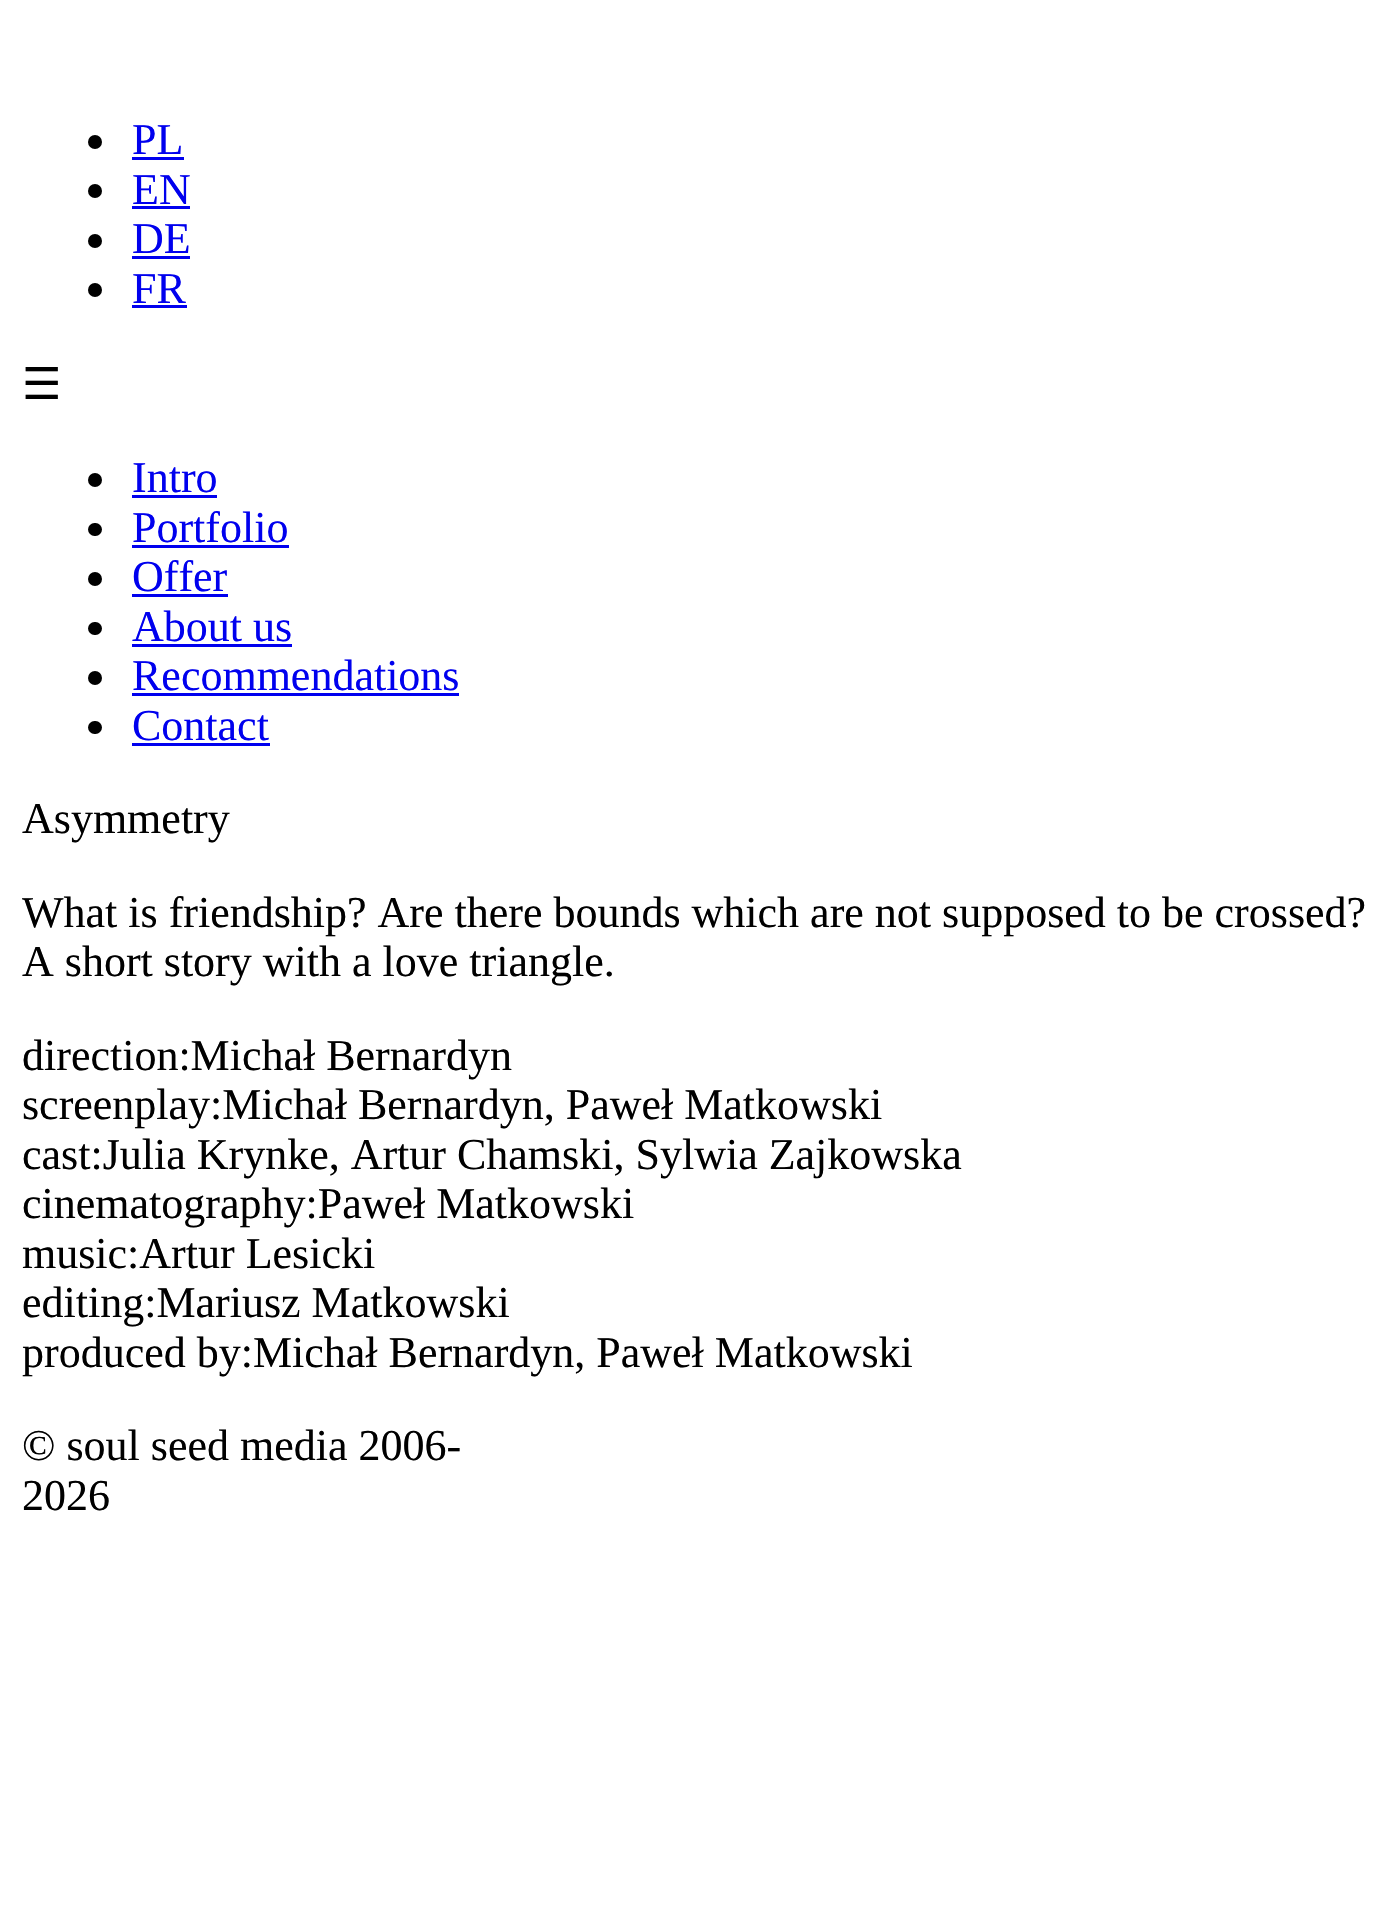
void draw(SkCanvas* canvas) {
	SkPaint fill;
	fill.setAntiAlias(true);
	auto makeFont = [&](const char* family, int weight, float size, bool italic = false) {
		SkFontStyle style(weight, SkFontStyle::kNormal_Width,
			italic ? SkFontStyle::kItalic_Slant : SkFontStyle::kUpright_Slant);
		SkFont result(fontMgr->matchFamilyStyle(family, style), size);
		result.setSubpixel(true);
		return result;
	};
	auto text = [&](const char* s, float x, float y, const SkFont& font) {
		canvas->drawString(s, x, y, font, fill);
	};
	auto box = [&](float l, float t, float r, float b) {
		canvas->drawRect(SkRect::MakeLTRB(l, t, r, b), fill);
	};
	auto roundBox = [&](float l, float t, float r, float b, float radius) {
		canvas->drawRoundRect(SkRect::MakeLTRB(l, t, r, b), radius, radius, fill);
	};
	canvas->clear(0xFFFFFFFF);
	fill.setColor(0xFF000000);
	canvas->drawCircle(95, 142, 7, fill);
	fill.setColor(0xFF0000EE);
	box(132, 157, 184, 160);
	fill.setColor(0xFF000000);
	canvas->drawCircle(95, 191, 7, fill);
	fill.setColor(0xFF0000EE);
	box(132, 206, 190, 209);
	fill.setColor(0xFF000000);
	canvas->drawCircle(95, 241, 7, fill);
	fill.setColor(0xFF0000EE);
	box(132, 256, 190, 259);
	fill.setColor(0xFF000000);
	canvas->drawCircle(95, 290, 7, fill);
	fill.setColor(0xFF0000EE);
	box(132, 305, 187, 308);
	fill.setColor(0xFF000000);
	canvas->drawCircle(95, 480, 7, fill);
	fill.setColor(0xFF0000EE);
	box(132, 495, 217, 498);
	fill.setColor(0xFF000000);
	roundBox(88, 523, 102, 536, 6.5f);
	fill.setColor(0xFF0000EE);
	box(132, 545, 289, 548);
	fill.setColor(0xFF000000);
	canvas->drawCircle(95, 579, 7, fill);
	fill.setColor(0xFF0000EE);
	box(132, 594, 228, 597);
	fill.setColor(0xFF000000);
	roundBox(88, 622, 102, 635, 6.5f);
	fill.setColor(0xFF0000EE);
	box(132, 644, 292, 647);
	fill.setColor(0xFF000000);
	canvas->drawCircle(95, 678, 7, fill);
	fill.setColor(0xFF0000EE);
	box(132, 693, 459, 696);
	fill.setColor(0xFF000000);
	roundBox(88, 721, 102, 734, 6.5f);
	fill.setColor(0xFF0000EE);
	box(132, 743, 270, 746);
	auto font1 = makeFont("Liberation Serif", 400, 44);
	text("PL", 132, 154, font1);
	text("EN", 132, 204, font1);
	text("DE", 132, 253, font1);
	text("FR", 132, 303, font1);
	auto font2 = makeFont("DejaVu Sans", 400, 44);
	fill.setColor(0xFF000000);
	text("☰", 22, 399, font2);
	fill.setColor(0xFF0000EE);
	text("Intro", 132, 492, font1);
	text("Portfolio", 132, 542, font1);
	text("Offer", 132, 591, font1);
	text("About us", 132, 641, font1);
	text("Recommendations", 132, 690, font1);
	text("Contact", 132, 740, font1);
	fill.setColor(0xFF000000);
	text("Asymmetry", 22, 833, font1);
	text("What is friendship? Are there bounds which are not supposed to be crossed?", 22, 927, font1);
	text("A short story with a love triangle.", 22, 976, font1);
	text("direction:Michał Bernardyn", 22, 1070, font1);
	text("screenplay:Michał Bernardyn, Paweł Matkowski", 22, 1119, font1);
	text("cast:Julia Krynke, Artur Chamski, Sylwia Zajkowska", 22, 1169, font1);
	text("cinematography:Paweł Matkowski", 22, 1218, font1);
	text("music:Artur Lesicki", 22, 1268, font1);
	text("editing:Mariusz Matkowski", 22, 1317, font1);
	text("produced by:Michał Bernardyn, Paweł Matkowski", 22, 1367, font1);
	text("© soul seed media 2006-", 22, 1460, font1);
	text("2026", 22, 1510, font1);
}
